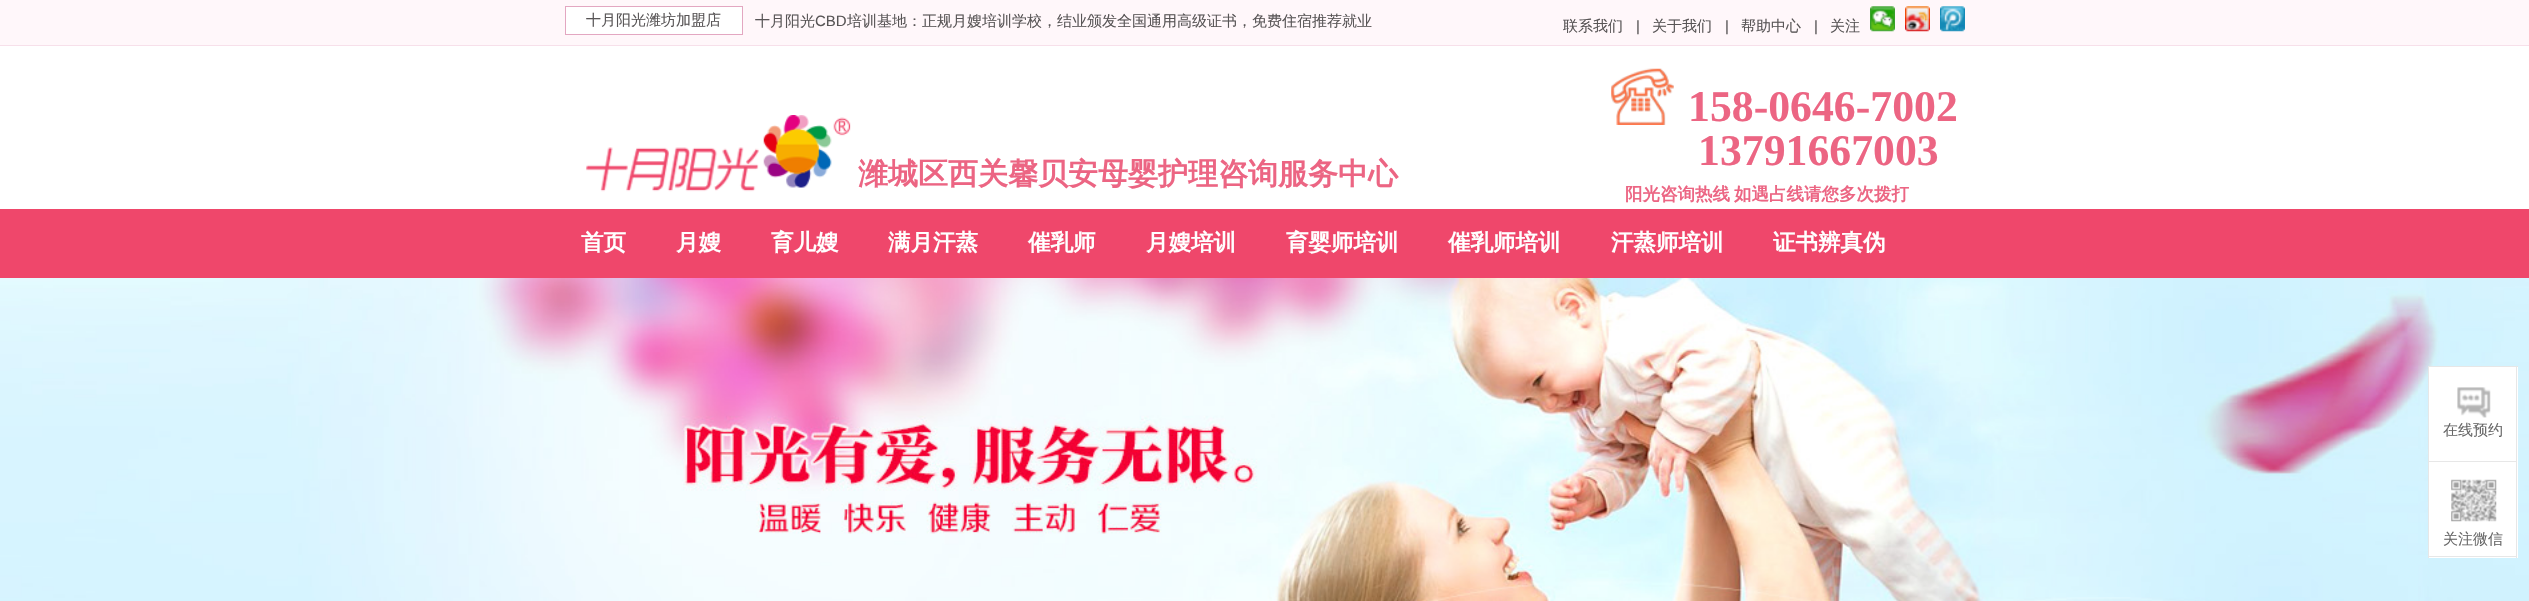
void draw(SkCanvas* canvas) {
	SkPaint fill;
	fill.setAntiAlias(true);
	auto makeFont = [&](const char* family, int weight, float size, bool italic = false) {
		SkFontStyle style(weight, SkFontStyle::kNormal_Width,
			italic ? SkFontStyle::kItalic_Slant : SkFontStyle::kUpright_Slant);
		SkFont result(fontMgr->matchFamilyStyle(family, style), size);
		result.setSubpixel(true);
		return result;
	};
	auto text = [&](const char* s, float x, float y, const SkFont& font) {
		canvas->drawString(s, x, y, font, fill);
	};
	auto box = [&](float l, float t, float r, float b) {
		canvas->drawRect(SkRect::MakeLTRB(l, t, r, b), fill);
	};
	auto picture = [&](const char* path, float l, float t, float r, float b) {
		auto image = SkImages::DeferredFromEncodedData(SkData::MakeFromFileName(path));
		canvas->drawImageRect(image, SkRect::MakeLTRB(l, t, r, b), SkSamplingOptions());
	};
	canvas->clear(0xFFFFFFFF);
	fill.setColor(0xFFFFF7FA);
	box(0, 0, 2529, 45);
	fill.setColor(0xFFF7E0EA);
	box(0, 45, 2529, 46);
	fill.setColor(0xFFFFFFFF);
	canvas->drawRect(SkRect::MakeLTRB(565.5f, 6.5f, 742.5f, 34.5f), fill);
	fill.setStyle(SkPaint::kStroke_Style);
	fill.setStrokeWidth(1);
	fill.setColor(0xFFE3A7C1);
	canvas->drawRect(SkRect::MakeLTRB(565.5f, 6.5f, 742.5f, 34.5f), fill);
	picture("image0.png", 1870, 6, 1895, 32);
	picture("image1.png", 1905, 6, 1930, 32);
	picture("image2.png", 1940, 6, 1965, 32);
	picture("image3.png", 586, 115, 851, 192);
	picture("image4.png", 1611, 68, 1674, 125);
	fill.setStyle(SkPaint::kFill_Style);
	fill.setColor(0xFFEF476B);
	box(0, 209, 2529, 278);
	picture("image5.png", 0, 278, 2529, 601);
	fill.setColor(0xFFFFFFFF);
	box(2429, 367, 2518, 558);
	fill.setColor(0xFFE7E7E7);
	box(2428, 366, 2518, 367);
	box(2516, 366, 2517, 558);
	box(2428, 366, 2429, 558);
	box(2429, 461, 2516, 462);
	picture("image6.png", 2457, 387, 2491, 418);
	box(2429, 556, 2516, 557);
	picture("image7.png", 2451, 479, 2497, 522);
	auto font1 = makeFont("WenQuanYi Zen Hei", 500, 15);
	fill.setColor(0xFF585556);
	text("十月阳光潍坊加盟店", 586, 25, font1);
	text("十月阳光", 755, 26, font1);
	auto font2 = makeFont("Liberation Sans", 400, 15);
	text("CBD", 815, 26, font2);
	text("培训基地：正规月嫂培训学校，结业颁发全国通用高级证书，免费住宿推荐就业", 847, 26, font1);
	text("联系我们", 1563, 31, font1);
	text("|", 1636, 31, font2);
	text("关于我们", 1652, 31, font1);
	text("|", 1725, 31, font2);
	text("帮助中心", 1741, 31, font1);
	text("|", 1814, 31, font2);
	text("关注", 1830, 31, font1);
	auto font3 = makeFont("WenQuanYi Zen Hei", 700, 30);
	fill.setColor(0xFFEC6583);
	text("潍城区西关馨贝安母婴护理咨询服务中心", 858, 184, font3);
	auto font4 = makeFont("Liberation Serif", 700, 43.75f);
	text("158-0646-7002", 1688, 121, font4);
	text("13791667003", 1698, 165, font4);
	auto font5 = makeFont("WenQuanYi Zen Hei", 700, 17.5f);
	text("阳光咨询热线", 1625, 200, font5);
	text("如遇占线请您多次拨打", 1734, 200, font5);
	auto font6 = makeFont("WenQuanYi Zen Hei", 700, 22.5f);
	fill.setColor(0xFFFFFFFF);
	text("首页", 581, 250, font6);
	text("月嫂", 676, 250, font6);
	text("育儿嫂", 771, 250, font6);
	text("满月汗蒸", 888, 250, font6);
	text("催乳师", 1028, 250, font6);
	text("月嫂培训", 1146, 250, font6);
	text("育婴师培训", 1286, 250, font6);
	text("催乳师培训", 1448, 250, font6);
	text("汗蒸师培训", 1611, 250, font6);
	text("证书辨真伪", 1773, 250, font6);
	fill.setColor(0xFF676767);
	text("在线预约", 2443, 435, font1);
	text("关注微信", 2443, 544, font1);
}
